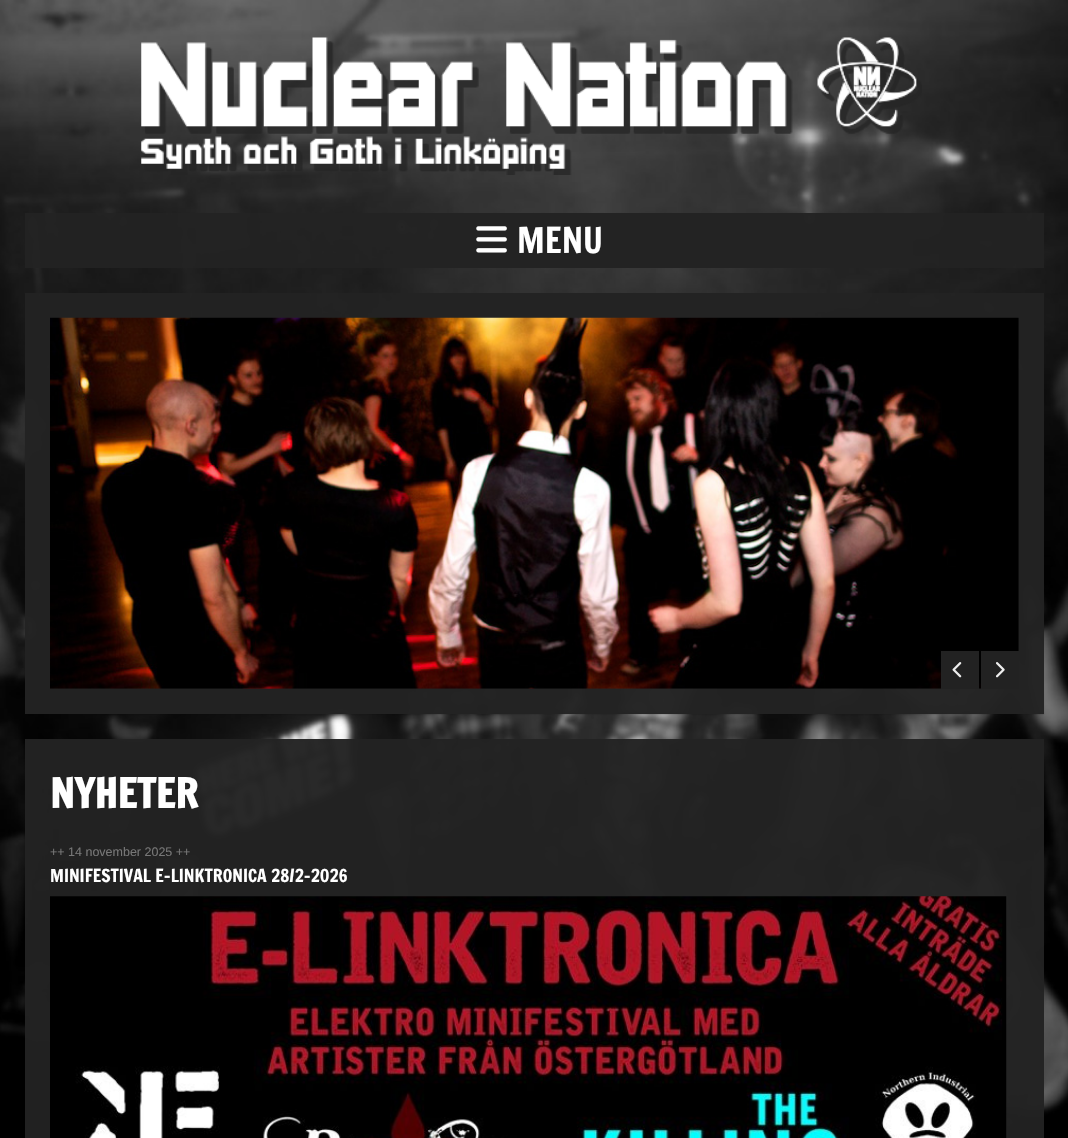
void draw(SkCanvas* canvas) {
	SkPaint fill;
	fill.setAntiAlias(true);
	auto makeFont = [&](const char* family, int weight, float size, bool italic = false) {
		SkFontStyle style(weight, SkFontStyle::kNormal_Width,
			italic ? SkFontStyle::kItalic_Slant : SkFontStyle::kUpright_Slant);
		SkFont result(fontMgr->matchFamilyStyle(family, style), size);
		result.setSubpixel(true);
		return result;
	};
	auto text = [&](const char* s, float x, float y, const SkFont& font) {
		canvas->drawString(s, x, y, font, fill);
	};
	auto box = [&](float l, float t, float r, float b) {
		canvas->drawRect(SkRect::MakeLTRB(l, t, r, b), fill);
	};
	auto picture = [&](const char* path, float l, float t, float r, float b) {
		auto image = SkImages::DeferredFromEncodedData(SkData::MakeFromFileName(path));
		canvas->drawImageRect(image, SkRect::MakeLTRB(l, t, r, b), SkSamplingOptions());
	};
	canvas->clear(0xFFFFFFFF);
	picture("image0.png", 0, 0, 1068, 1138);
	picture("image1.png", 141, 37, 922, 175);
	fill.setColor(0xF7222222);
	box(25, 213, 1044, 268);
	box(401, 226, 403, 228);
	picture("image2.png", 476, 226, 507, 253);
	canvas->save();
	canvas->clipPath(SkPathBuilder(SkPathFillType::kEvenOdd).moveTo(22, 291).lineTo(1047, 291).lineTo(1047, 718).lineTo(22, 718).close().moveTo(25, 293).lineTo(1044, 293).lineTo(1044, 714).lineTo(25, 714).close().detach(), true);
	fill.setColor(0x1A000000);
	fill.setMaskFilter(SkMaskFilter::MakeBlur(kNormal_SkBlurStyle, 0.5f));
	canvas->drawRect(SkRect::MakeLTRB(25, 294, 1044, 715), fill);
	fill.setMaskFilter(nullptr);
	canvas->restore();
	fill.setColor(0xF7222222);
	box(25, 293, 1044, 714);
	picture("image3.png", 50, 317, 1019, 689);
	fill.setColor(0xFF222222);
	box(941, 651, 979, 689);
	picture("image4.png", 952, 662, 962, 678);
	box(981, 651, 1019, 689);
	picture("image5.png", 996, 662, 1005, 678);
	fill.setColor(0xF7222222);
	box(25, 739, 1044, 1138);
	picture("image6.png", 50, 896, 1007, 1138);
	auto font1 = makeFont("Francois One", 400, 35);
	fill.setColor(0xFFFFFFFF);
	text("MENU", 517, 253, font1);
	auto font2 = makeFont("Francois One", 700, 40);
	text("NYHETER", 50, 808, font2);
	auto font3 = makeFont("Liberation Sans", 400, 12.5f);
	fill.setColor(0xFF777777);
	text("++ 14 november 2025 ++", 50, 856, font3);
	auto font4 = makeFont("Francois One", 400, 17.5f);
	fill.setColor(0xFFFFFFFF);
	text("MINIFESTIVAL E-LINKTRONICA 28/2-2026", 50, 882, font4);
}
